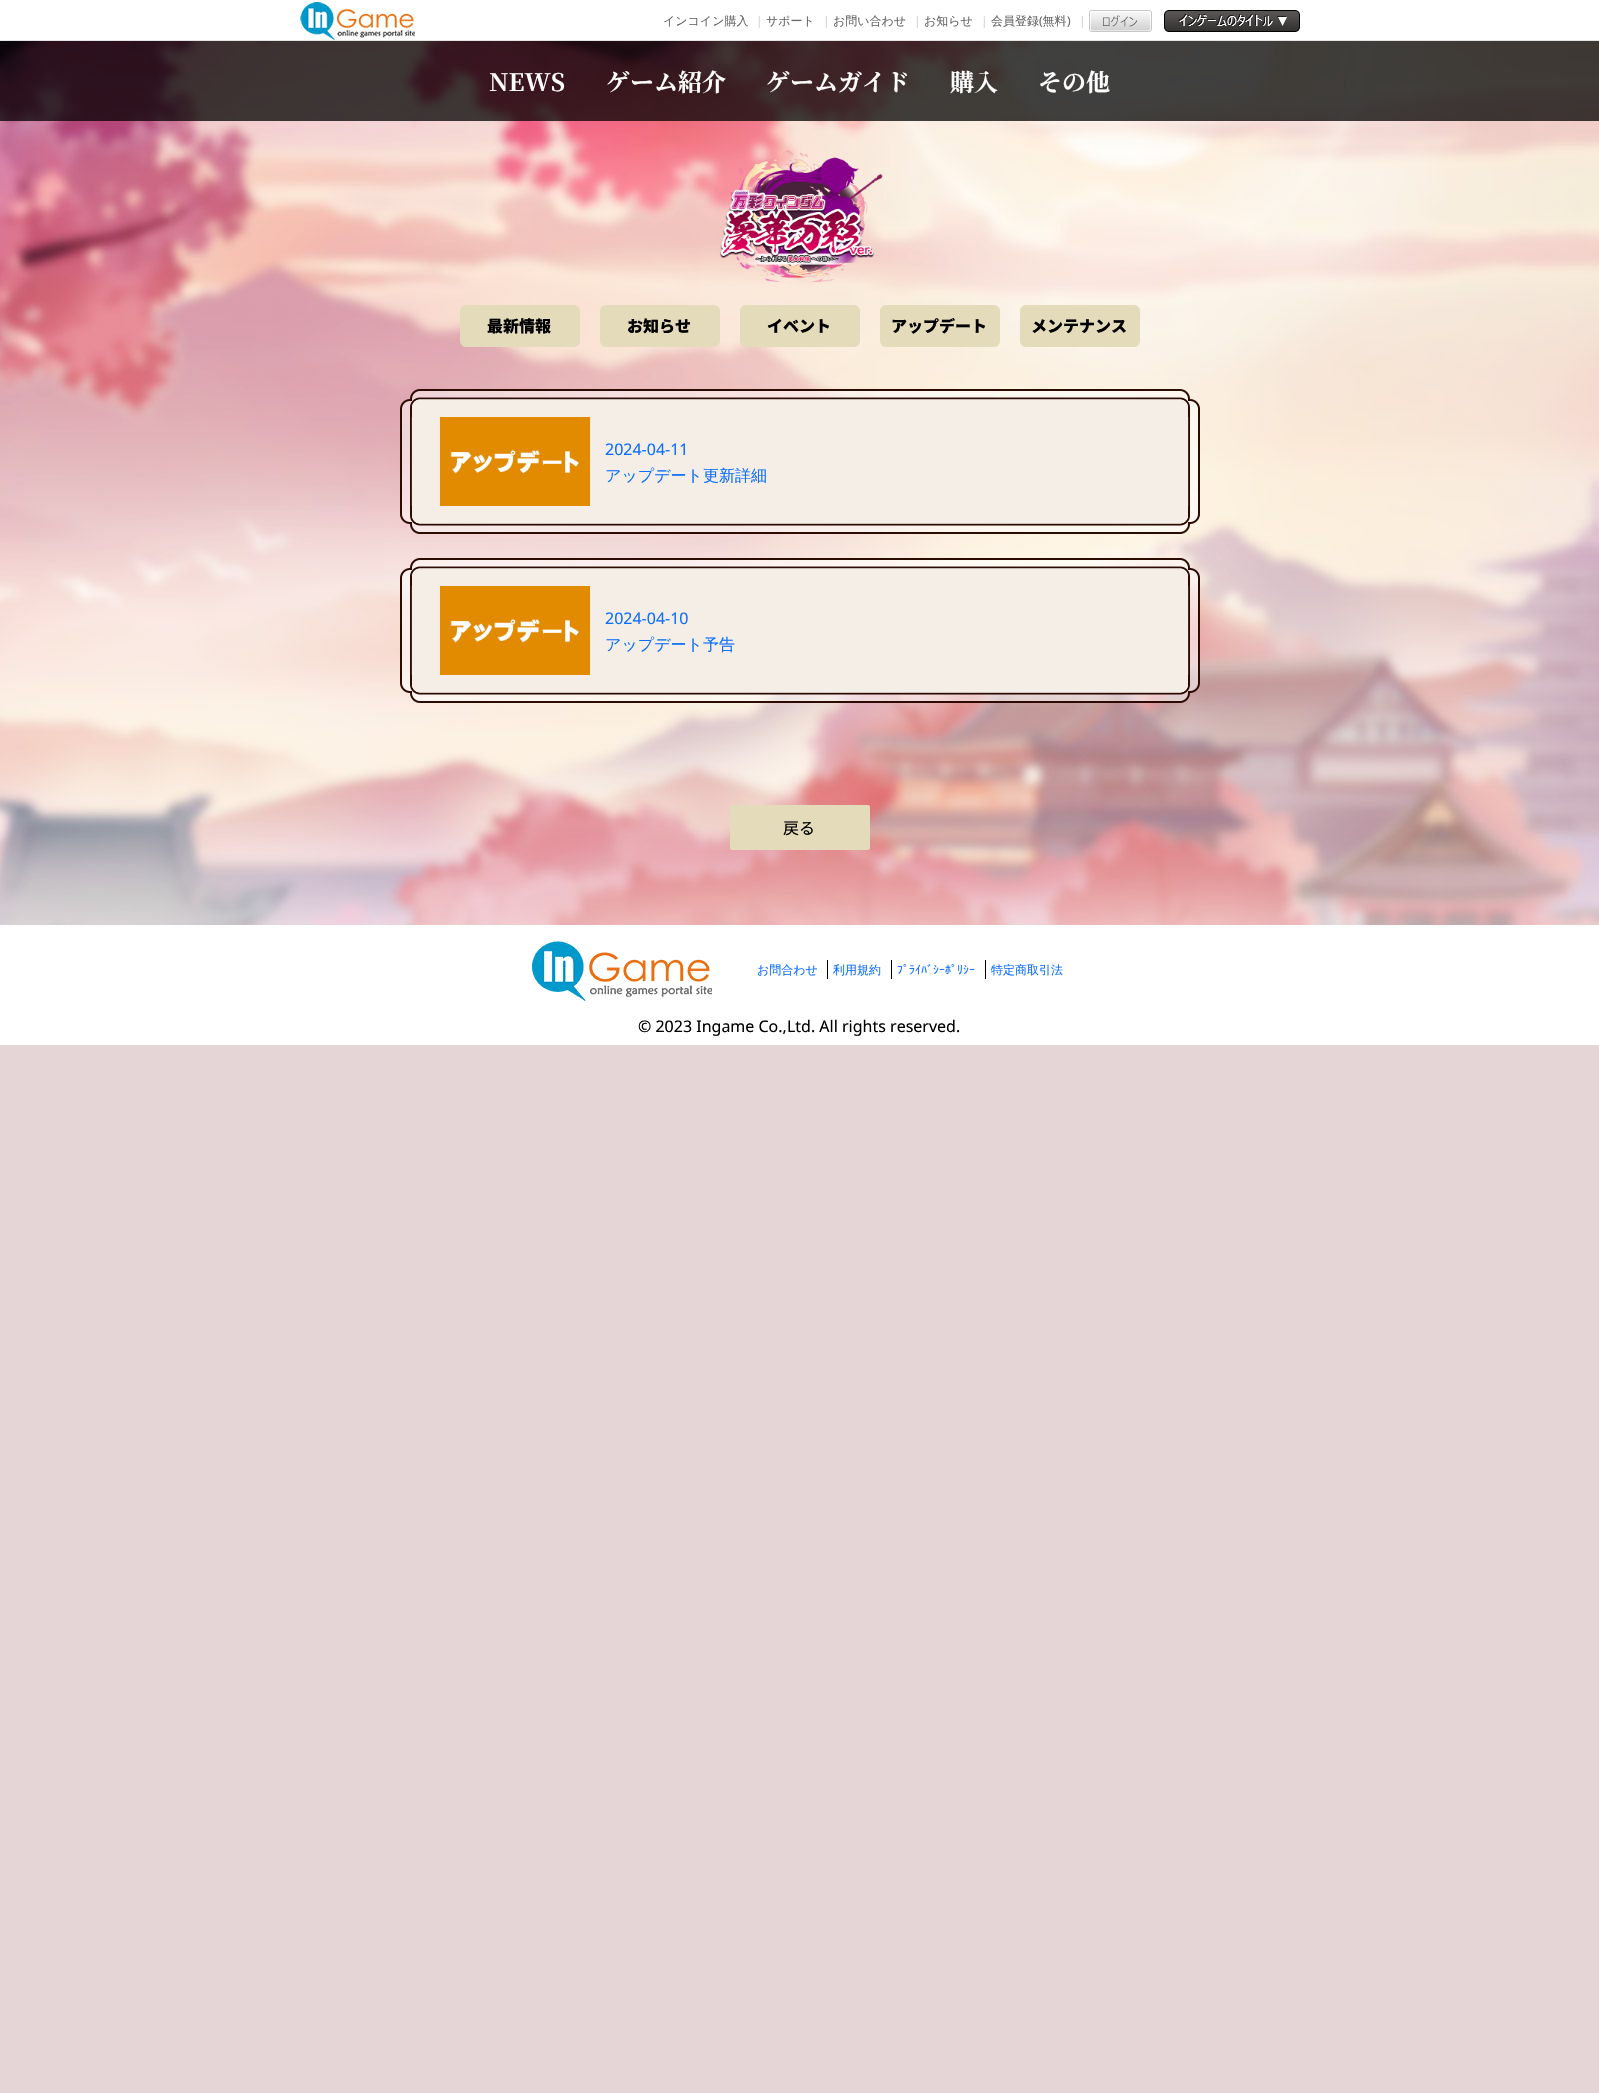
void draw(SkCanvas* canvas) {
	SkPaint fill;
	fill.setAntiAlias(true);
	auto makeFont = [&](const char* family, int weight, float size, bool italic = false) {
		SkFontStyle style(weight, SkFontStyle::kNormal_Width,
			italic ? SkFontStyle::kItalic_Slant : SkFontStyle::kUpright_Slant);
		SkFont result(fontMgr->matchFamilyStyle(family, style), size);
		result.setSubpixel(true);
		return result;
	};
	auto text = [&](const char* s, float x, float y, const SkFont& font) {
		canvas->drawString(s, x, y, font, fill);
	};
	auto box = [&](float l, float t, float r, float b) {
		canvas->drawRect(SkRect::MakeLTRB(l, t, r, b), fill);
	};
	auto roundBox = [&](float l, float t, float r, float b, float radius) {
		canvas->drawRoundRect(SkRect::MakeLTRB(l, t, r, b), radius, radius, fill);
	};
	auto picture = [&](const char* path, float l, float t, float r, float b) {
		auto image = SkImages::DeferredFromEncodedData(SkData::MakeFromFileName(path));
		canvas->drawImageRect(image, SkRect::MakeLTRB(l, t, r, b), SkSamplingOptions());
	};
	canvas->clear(0xFFE5D5D6);
	picture("image0.png", 0, 41, 1599, 925);
	fill.setColor(0xFFFFFFFF);
	box(0, 0, 1599, 40);
	fill.setColor(0xFFE4E4E4);
	box(0, 40, 1599, 41);
	picture("image1.png", 300, 2, 415, 40);
	picture("image2.png", 1089, 10, 1152, 32);
	picture("image3.png", 1164, 10, 1300, 32);
	fill.setColor(0xBF000000);
	box(0, 41, 1599, 121);
	picture("image4.png", 719, 150, 883, 283);
	fill.setColor(0xFFE4DBBA);
	roundBox(460, 305, 580, 347, 6);
	roundBox(600, 305, 720, 347, 6);
	roundBox(740, 305, 860, 347, 6);
	roundBox(880, 305, 1000, 347, 6);
	roundBox(1020, 305, 1140, 347, 6);
	picture("image5.png", 400, 417, 1200, 506);
	picture("image6.png", 400, 389, 1200, 417);
	picture("image7.png", 440, 417, 590, 506);
	picture("image8.png", 400, 506, 1200, 534);
	picture("image9.png", 400, 586, 1200, 675);
	picture("image10.png", 400, 558, 1200, 586);
	picture("image7.png", 440, 586, 590, 675);
	picture("image11.png", 400, 675, 1200, 703);
	roundBox(730, 805, 870, 850, 2);
	fill.setColor(0xFFFFFFFF);
	box(0, 925, 1599, 1045);
	picture("image12.png", 532, 941, 712, 1001);
	fill.setColor(0xFF000000);
	box(827, 960, 828, 979);
	box(891, 960, 892, 979);
	box(985, 960, 986, 979);
	auto font1 = makeFont("WenQuanYi Zen Hei", 500, 12);
	fill.setColor(0xFF666666);
	text("インコイン購入", 663, 25, font1);
	auto font2 = makeFont("Noto Sans", 400, 12);
	fill.setColor(0xFFD4D4D4);
	text("|", 756, 25, font2);
	fill.setColor(0xFF666666);
	text("サポート", 766, 25, font1);
	fill.setColor(0xFFD4D4D4);
	text("|", 823, 25, font2);
	fill.setColor(0xFF666666);
	text("お問い合わせ", 833, 25, font1);
	fill.setColor(0xFFD4D4D4);
	text("|", 914, 25, font2);
	fill.setColor(0xFF666666);
	text("お知らせ", 924, 25, font1);
	fill.setColor(0xFFD4D4D4);
	text("|", 981, 25, font2);
	fill.setColor(0xFF666666);
	text("会員登録 無料", 991, 25, font1);
	text("(", 1039, 25, font2);
	text(")", 1067, 25, font2);
	fill.setColor(0xFFD4D4D4);
	text("|", 1079, 25, font2);
	auto font3 = makeFont("Noto Serif JP", 700, 24);
	fill.setColor(0xFFFFFFFF);
	text("NEWS", 489, 91, font3);
	text("ゲーム紹介", 606, 91, font3);
	text("ゲームガイド", 766, 91, font3);
	text("購入", 950, 91, font3);
	text("その他", 1038, 91, font3);
	auto font4 = makeFont("Noto Sans JP", 900, 16);
	fill.setColor(0xFF000000);
	text("最新情報", 487, 332, font4);
	text("お知らせ", 627, 332, font4);
	text("イベント", 767, 332, font4);
	text("アップデート", 891, 332, font4);
	text("メンテナンス", 1031, 332, font4);
	auto font5 = makeFont("Noto Sans", 400, 16);
	fill.setColor(0xFF0D6EFD);
	text("2024-04-11", 605, 455, font5);
	auto font6 = makeFont("WenQuanYi Zen Hei", 500, 16);
	text("アップデート更新詳細", 605, 481, font6);
	text("2024-04-10", 605, 624, font5);
	text("アップデート予告", 605, 650, font6);
	auto font7 = makeFont("Noto Sans JP", 400, 16);
	fill.setColor(0xFF000000);
	text("戻る", 783, 834, font7);
	fill.setColor(0xFF0D6EFD);
	text("お問合わせ", 757, 974, font1);
	text("利用規約", 833, 974, font1);
	auto font8 = makeFont("IPAPGothic", 400, 12);
	text("ﾌﾟﾗｲﾊﾞｼｰﾎﾟﾘｼｰ", 897, 974, font8);
	text("特定商取引法", 991, 974, font1);
	fill.setColor(0xFF000000);
	text("© 2023 Ingame Co.,Ltd. All rights reserved.", 638, 1032, font5);
}
